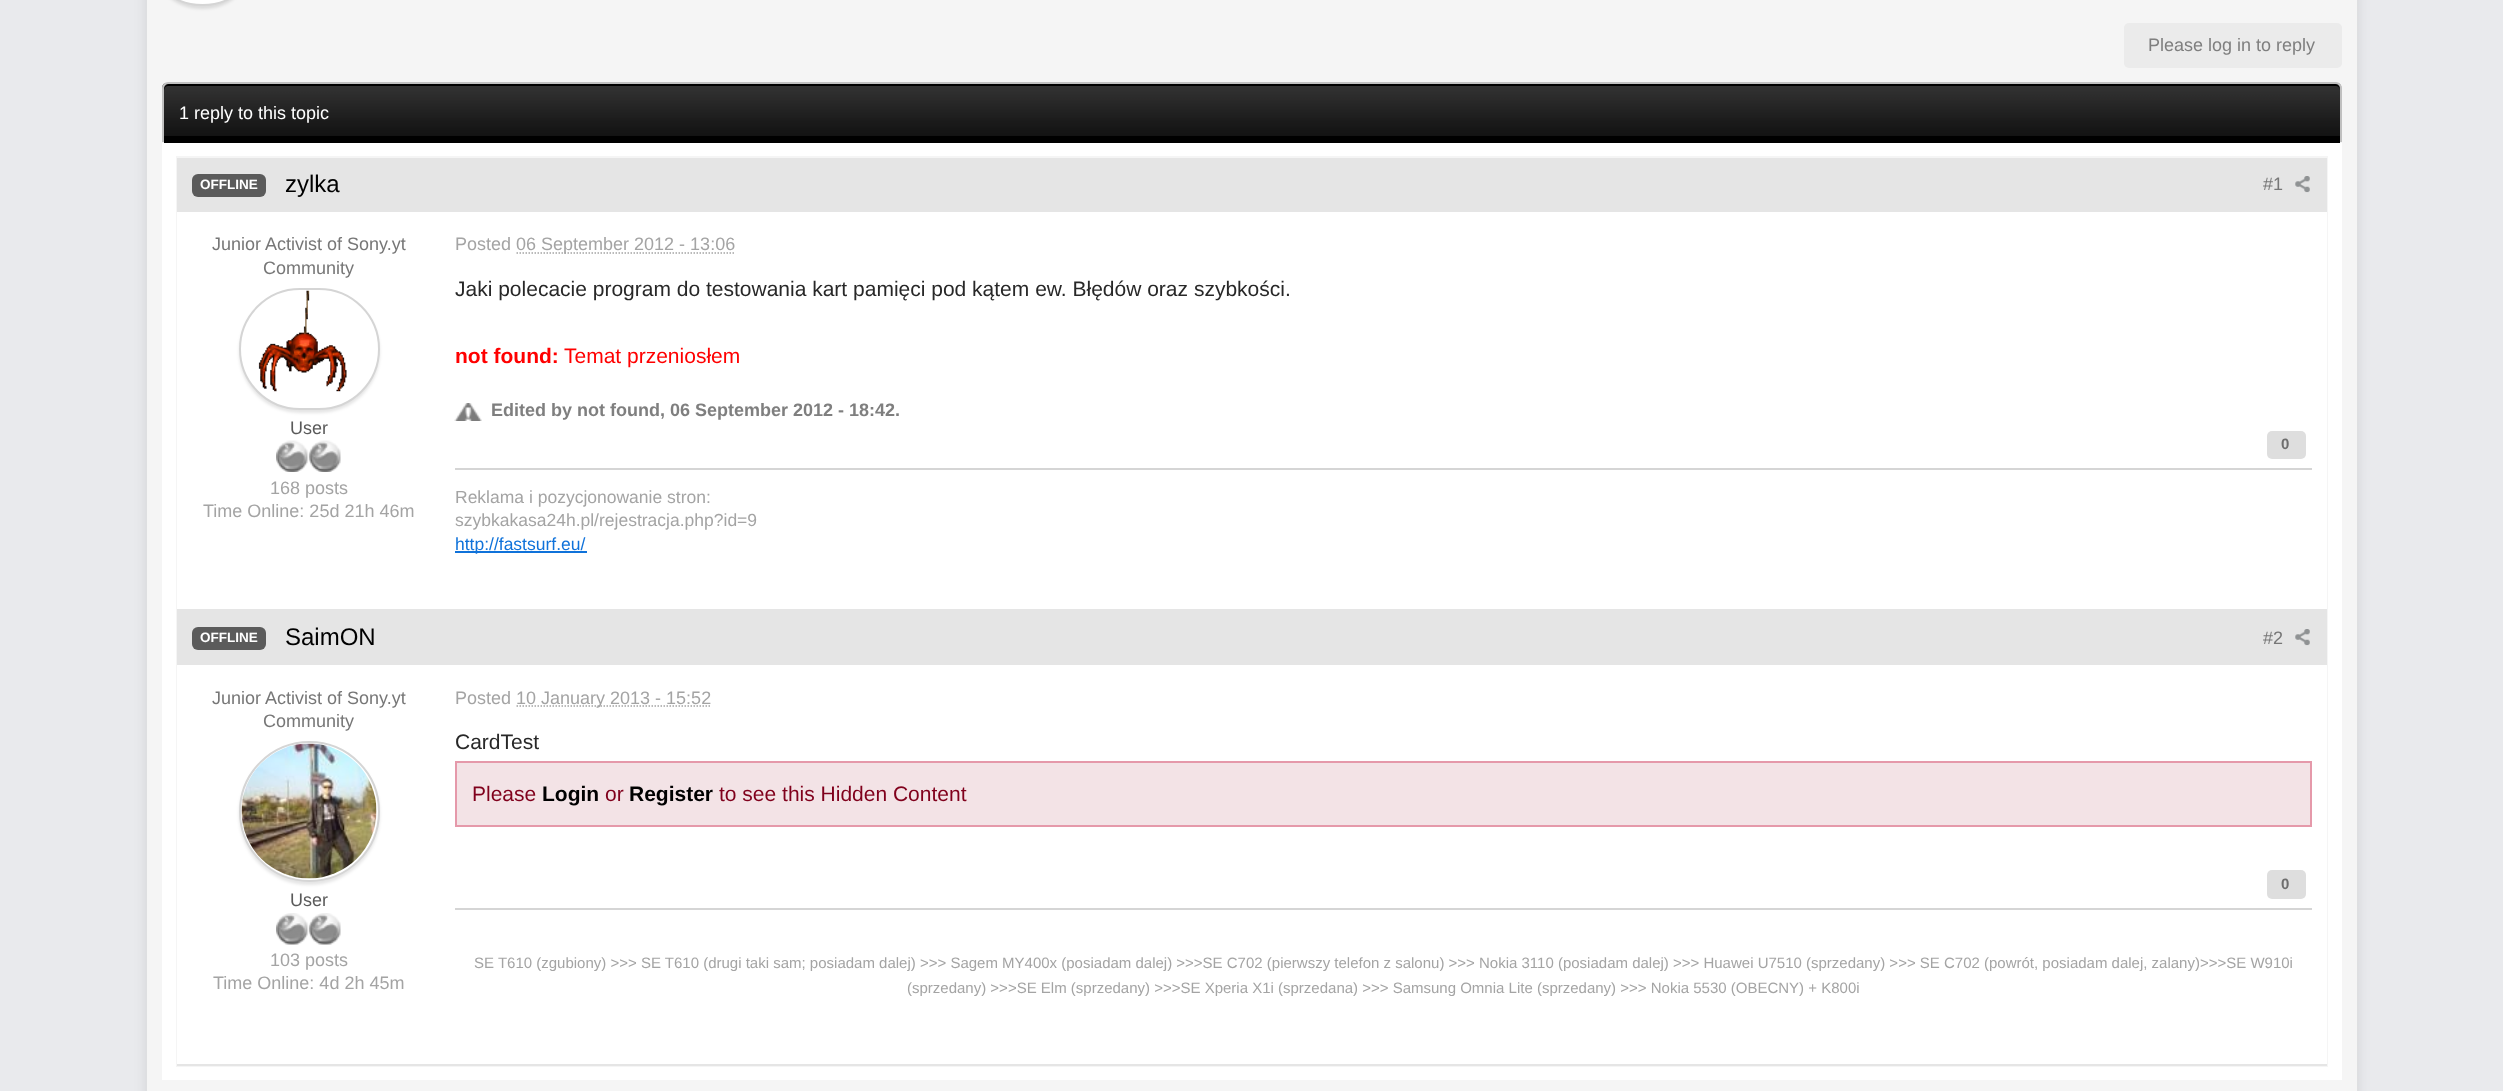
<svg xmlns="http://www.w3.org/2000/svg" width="2503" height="1091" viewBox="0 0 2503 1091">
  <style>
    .t1 { font: 18px Liberation Sans; fill: #7f7f7f; }
    .t2 { font: 18px Liberation Sans; fill: #fff; }
    .t3 { font: bold 13.5px Liberation Sans; fill: #fff; }
    .t4 { font: 24px Liberation Sans; fill: #000; }
    .t5 { font: 18px Liberation Sans; fill: #777; }
    .t6 { font: 18px Liberation Sans; fill: #5a5a5a; }
    .t7 { font: 18px Liberation Sans; fill: #a4a4a4; }
    .t8 { font: 21px Liberation Sans; fill: #282828; }
    .t9 { font: bold 21px Liberation Sans; fill: #f00; }
    .t10 { font: 21px Liberation Sans; fill: #f00; }
    .t11 { font: bold 18px Liberation Sans; fill: #7f7f7f; }
    .t12 { font: bold 15px Liberation Sans; fill: #6e6e6e; }
    .t13 { font: 17.5px Liberation Sans; fill: #a4a4a4; }
    .t14 { font: 17.5px Liberation Sans; fill: #0f72da; }
    .t15 { font: 21px Liberation Sans; fill: #80001c; }
    .t16 { font: bold 21px Liberation Sans; fill: #000; }
    .t17 { font: 15px Liberation Sans; fill: #a4a4a4; }
  </style>
  <rect width="100%" height="100%" fill="#e9eaed"/>
  <rect x="147" y="-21" width="2210" height="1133" fill="#0000001a" filter="blur(7px)"/>
  <rect x="147" y="0" width="2210" height="1091" fill="#f5f5f5"/>
  <rect x="162" y="-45" width="81" height="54" rx="40.5" fill="#0000001a" filter="blur(1.5px)"/>
  <rect x="163" y="-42" width="79" height="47" rx="39.5" fill="#fff" stroke="#d5d5d5" stroke-width="2"/>
  <rect x="2124" y="23" width="218" height="45" rx="5" fill="#ebebeb"/>
  <text x="2148" y="51" class="t1">Please log in to reply</text>
  <rect x="164" y="136" width="2176" height="7" fill="#000"/>
  <image x="162" y="83" width="2180" height="53" href="images/1.png"/>
  <path d="M168 86H2336C2338 86 2340 88 2340 90C2340 87 2338 84 2335 84H169C167 84 165 86 164 88V90C164 88 166 86 168 86Z" fill="#000"/>
  <path d="M168 82H2336C2339 82 2342 85 2342 88V142H162V88C162 85 165 82 168 82ZM168 84H2336C2338 84 2340 86 2340 88V142H164V88C164 86 166 84 168 84Z" fill="#c0c0c0" fill-rule="evenodd"/>
  <text x="179" y="119" class="t2">1 reply to this topic</text>
  <rect x="162" y="143" width="2180" height="937" fill="#fff"/>
  <rect x="177" y="157" width="2150" height="909" fill="none" stroke="#f5f5f5" stroke-width="2"/>
  <rect x="177" y="212" width="2150" height="397" fill="#fff"/>
  <rect x="177" y="609" width="2150" height="56" fill="#e5e5e5"/>
  <rect x="177" y="158" width="2150" height="54" fill="#e5e5e5"/>
  <rect x="192" y="174" width="74" height="23" rx="6" fill="#5b5b5b"/>
  <text x="200" y="189" class="t3">OFFLINE</text>
  <text x="285" y="192" class="t4">zylka</text>
  <text x="2263" y="190" class="t5">#1</text>
  <image x="2295" y="176" width="15" height="17" href="images/2.png"/>
  <text x="212" y="250" class="t5">Junior Activist of Sony.yt</text>
  <text x="263" y="274" class="t5">Community</text>
  <rect x="239" y="291" width="141" height="122" rx="61" fill="#0000001a" filter="blur(1.5px)"/>
  <rect x="240" y="289" width="139" height="120" rx="60" fill="#fff" stroke="#d5d5d5" stroke-width="2"/>
  <image x="258" y="290" width="89" height="102" href="images/3.png"/>
  <text x="290" y="434" class="t6">User</text>
  <image x="276" y="440" width="65" height="32" href="images/4.png"/>
  <text x="270" y="494" class="t7">168 posts</text>
  <text x="203" y="517" class="t7">Time Online: 25d 21h 46m</text>
  <text x="455" y="250" class="t7">Posted</text>
  <path d="M516.5 253H735.5" fill="none" stroke="#a4a4a4" stroke-width="1.5" stroke-dasharray="1.5 1.5"/>
  <text x="516" y="250" class="t7">06 September 2012 - 13:06</text>
  <text x="455" y="296" class="t8">Jaki polecacie program do testowania kart pamięci pod kątem ew. Błędów oraz szybkości.</text>
  <text x="455" y="363" class="t9">not found:</text>
  <text x="564" y="363" class="t10">Temat przeniosłem</text>
  <image x="454" y="403" width="28" height="18" href="images/5.png"/>
  <text x="491" y="416" class="t11">Edited by not found, 06 September 2012 - 18:42.</text>
  <rect x="2267" y="431" width="39" height="28" rx="5" fill="#dedede"/>
  <text x="2281" y="449" class="t12">0</text>
  <rect x="455" y="468" width="1857" height="2" fill="#d5d5d5"/>
  <text x="455" y="503" class="t13">Reklama i pozycjonowanie stron:</text>
  <text x="455" y="526" class="t13">szybkakasa24h.pl/rejestracja.php?id=9</text>
  <rect x="455" y="551" width="132" height="2" fill="#0f72da"/>
  <text x="455" y="550" class="t14">http://fastsurf.eu/</text>
  <rect x="177" y="665" width="2150" height="399" fill="#fff"/>
  <rect x="177" y="1064" width="2150" height="2" fill="#e5e5e5"/>
  <rect x="192" y="627" width="74" height="23" rx="6" fill="#5b5b5b"/>
  <text x="200" y="642" class="t3">OFFLINE</text>
  <text x="285" y="645" class="t4">SaimON</text>
  <text x="2263" y="644" class="t5">#2</text>
  <image x="2295" y="629" width="15" height="17" href="images/2.png"/>
  <text x="212" y="704" class="t5">Junior Activist of Sony.yt</text>
  <text x="263" y="727" class="t5">Community</text>
  <rect x="239" y="744" width="141" height="141" rx="70.5" fill="#0000001a" filter="blur(1.5px)"/>
  <circle cx="309.5" cy="811.5" r="69.5" fill="#fff" stroke="#d5d5d5" stroke-width="2"/>
  <image x="241" y="743" width="136" height="136" href="images/6.png"/>
  <text x="290" y="906" class="t6">User</text>
  <image x="276" y="913" width="65" height="32" href="images/7.png"/>
  <text x="270" y="966" class="t7">103 posts</text>
  <text x="213" y="989" class="t7">Time Online: 4d 2h 45m</text>
  <text x="455" y="704" class="t7">Posted</text>
  <path d="M516.5 706H711.5" fill="none" stroke="#a4a4a4" stroke-width="1.5" stroke-dasharray="1.5 1.5"/>
  <text x="516" y="704" class="t7">10 January 2013 - 15:52</text>
  <text x="455" y="749" class="t8">CardTest</text>
  <rect x="456" y="762" width="1855" height="64" fill="#f3e3e6" stroke="#e599aa" stroke-width="2"/>
  <text x="472" y="801" class="t15">Please</text>
  <text x="542" y="801" class="t16">Login</text>
  <text x="605" y="801" class="t15">or</text>
  <text x="629" y="801" class="t16">Register</text>
  <text x="719" y="801" class="t15">to see this Hidden Content</text>
  <rect x="2267" y="870" width="39" height="29" rx="5" fill="#dedede"/>
  <text x="2281" y="889" class="t12">0</text>
  <rect x="455" y="908" width="1857" height="2" fill="#d5d5d5"/>
  <text x="474" y="968" class="t17">SE T610 (zgubiony) &gt;&gt;&gt; SE T610 (drugi taki sam; posiadam dalej) &gt;&gt;&gt; Sagem MY400x (posiadam dalej) &gt;&gt;&gt;SE C702 (pierwszy telefon z salonu) &gt;&gt;&gt; Nokia 3110 (posiadam dalej) &gt;&gt;&gt; Huawei U7510 (sprzedany) &gt;&gt;&gt; SE C702 (powrót, posiadam dalej, zalany)&gt;&gt;&gt;SE W910i</text>
  <text x="907" y="993" class="t17">(sprzedany) &gt;&gt;&gt;SE Elm (sprzedany) &gt;&gt;&gt;SE Xperia X1i (sprzedana) &gt;&gt;&gt; Samsung Omnia Lite (sprzedany) &gt;&gt;&gt; Nokia 5530 (OBECNY) + K800i</text>
</svg>
